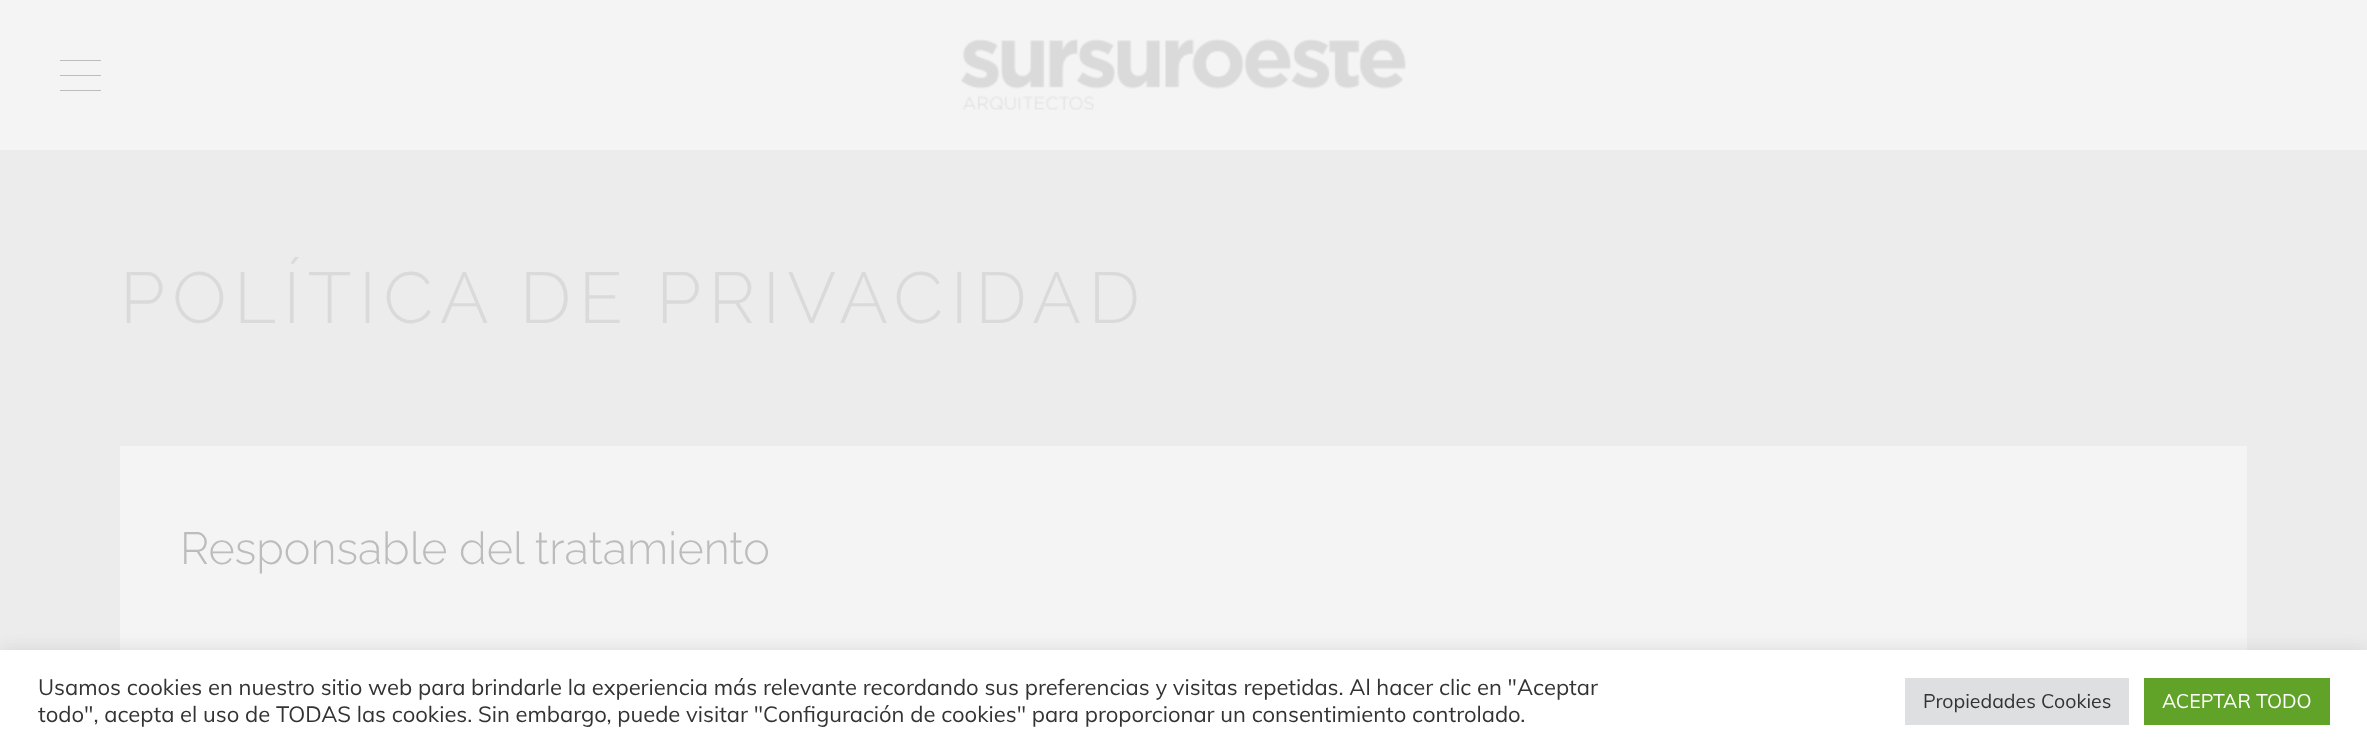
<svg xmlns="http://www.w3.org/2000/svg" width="2367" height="752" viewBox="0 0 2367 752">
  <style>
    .t1 { font: 300 72px Raleway; letter-spacing: 7.5px; fill: #dadada; }
    .t2 { font: 300 45px Raleway; fill: #bcbcbc; }
    .t3 { font: 22px Muli; fill: #333; }
    .t4 { font: 19.5px Muli; fill: #333; }
    .t5 { font: 19.5px Muli; fill: #fff; }
  </style>
  <rect width="100%" height="100%" fill="#ececec"/>
  <rect x="0" y="0" width="2367" height="150" fill="#f4f4f4"/>
  <rect x="60" y="90" width="41" height="1" fill="#bcbcbc"/>
  <rect x="60" y="60" width="41" height="1" fill="#bcbcbc"/>
  <rect x="60" y="75" width="41" height="1" fill="#bcbcbc"/>
  <image x="961" y="38" width="445" height="72" href="images/1.png"/>
  <text x="120" y="323" class="t1">POLÍTICA DE PRIVACIDAD</text>
  <rect x="120" y="446" width="2127" height="204" fill="#f4f4f4"/>
  <text x="180" y="564" class="t2">Responsable del tratamiento</text>
  <rect x="0" y="648" width="2367" height="104" fill="#acabab4d" filter="blur(7.5px)"/>
  <rect x="0" y="650" width="2367" height="102" fill="#fff"/>
  <text x="38" y="695" class="t3">Usamos cookies en nuestro sitio web para brindarle la experiencia más relevante recordando sus preferencias y visitas repetidas. Al hacer clic en "Aceptar</text>
  <text x="38" y="722" class="t3">todo", acepta el uso de TODAS las cookies. Sin embargo, puede visitar "Configuración de cookies" para proporcionar un consentimiento controlado.</text>
  <rect x="1905" y="678" width="224" height="47" fill="#dedfe0"/>
  <text x="1923" y="708" class="t4">Propiedades Cookies</text>
  <rect x="2144" y="678" width="186" height="47" fill="#61a229"/>
  <text x="2162" y="708" class="t5">ACEPTAR TODO</text>
</svg>
